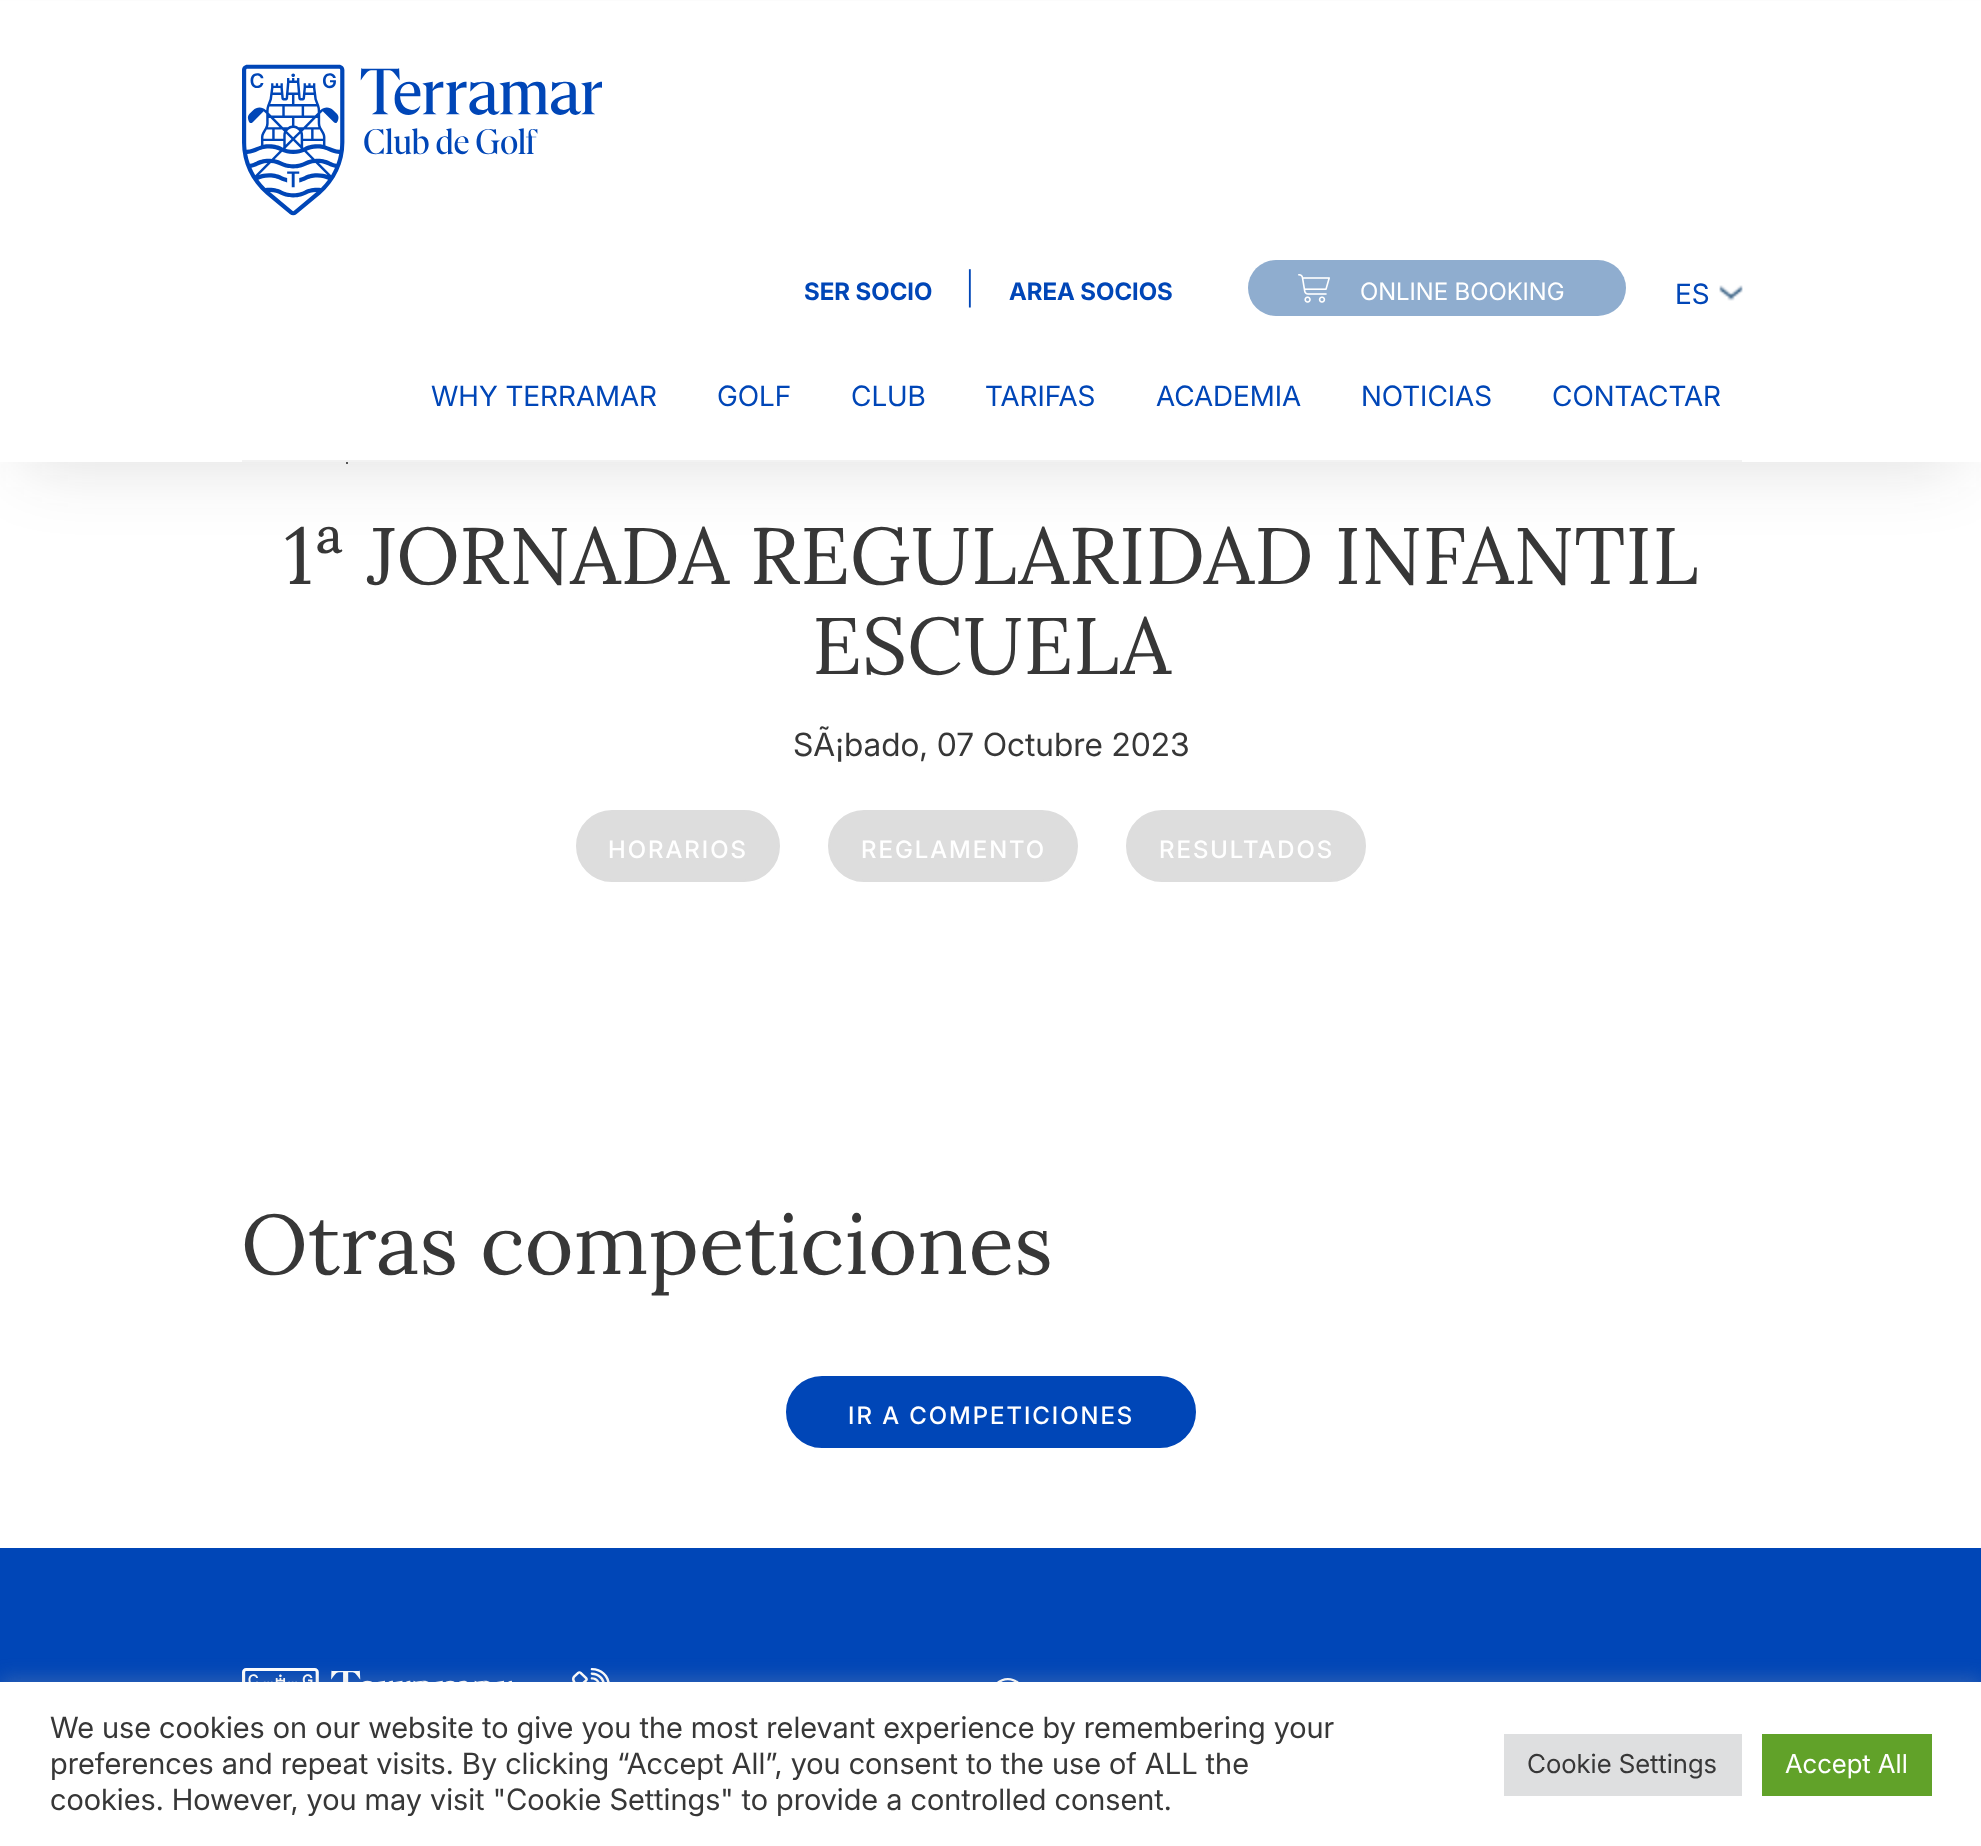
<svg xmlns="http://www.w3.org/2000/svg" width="1981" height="1846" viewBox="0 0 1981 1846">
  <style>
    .t1 { font: bold 24px Inter; fill: #0046b7; }
    .t2 { font: 300 32px Inter; fill: #0046b7; }
    .t3 { font: 24px Inter; fill: #fff; }
    .t4 { font: 28px Inter; fill: #0046b7; }
    .t5 { font: 80px Lora; fill: #373737; }
    .t6 { font: 32px Inter; fill: #373737; }
    .t7 { font: 500 24px Inter; letter-spacing: 2px; fill: #fff; }
    .t8 { font: 84px Lora; fill: #373737; }
    .t9 { font: 29.35px Inter; fill: #373737; }
    .t10 { font: 26px Inter; fill: #373737; }
    .t11 { font: 26px Inter; fill: #fff; }
  </style>
  <rect width="100%" height="100%" fill="#fff"/>
  <rect x="346" y="462" width="2" height="2" fill="#5a5a5a"/>
  <rect x="24" y="50" width="1934" height="414" fill="#23232326" filter="blur(35px)"/>
  <rect x="0" y="1" width="1981" height="461" fill="#fff"/>
  <rect x="242" y="460" width="1500" height="2" fill="#f2f2f2"/>
  <image x="242" y="64" width="360" height="152" href="images/1.png"/>
  <text x="804" y="300" class="t1">SER SOCIO</text>
  <text x="965" y="300" class="t2">|</text>
  <text x="1009" y="300" class="t1">AREA SOCIOS</text>
  <rect x="1248" y="260" width="378" height="56" rx="28" fill="#8fadcf"/>
  <image x="1298" y="274" width="32" height="29" href="images/2.png"/>
  <text x="1360" y="300" class="t3">ONLINE BOOKING</text>
  <text x="1675" y="304" class="t4">ES</text>
  <image x="1719" y="285" width="24" height="16" href="images/3.png"/>
  <text x="431" y="406" class="t4">WHY TERRAMAR</text>
  <text x="717" y="406" class="t4">GOLF</text>
  <text x="851" y="406" class="t4">CLUB</text>
  <text x="985" y="406" class="t4">TARIFAS</text>
  <text x="1156" y="406" class="t4">ACADEMIA</text>
  <text x="1361" y="406" class="t4">NOTICIAS</text>
  <text x="1552" y="406" class="t4">CONTACTAR</text>
  <text x="284" y="584" class="t5">1ª JORNADA REGULARIDAD INFANTIL</text>
  <text x="812" y="674" class="t5">ESCUELA</text>
  <text x="793" y="756" class="t6">SÃ¡bado, 07 Octubre 2023</text>
  <rect x="577" y="811" width="202" height="70" rx="35" fill="#ddd" stroke="#ddd" stroke-width="2"/>
  <text x="608" y="858" class="t7">HORARIOS</text>
  <rect x="829" y="811" width="248" height="70" rx="35" fill="#ddd" stroke="#ddd" stroke-width="2"/>
  <text x="861" y="858" class="t7">REGLAMENTO</text>
  <rect x="1127" y="811" width="238" height="70" rx="35" fill="#ddd" stroke="#ddd" stroke-width="2"/>
  <text x="1159" y="858" class="t7">RESULTADOS</text>
  <text x="241" y="1274" class="t8">Otras competiciones</text>
  <rect x="787" y="1377" width="408" height="70" rx="35" fill="#0046b7" stroke="#0046b7" stroke-width="2"/>
  <text x="848" y="1424" class="t7">IR A COMPETICIONES</text>
  <rect x="0" y="1548" width="1981" height="134" fill="#0046b7"/>
  <image x="242" y="1668" width="270" height="14" href="images/4.png"/>
  <image x="572" y="1668" width="38" height="14" href="images/5.png"/>
  <image x="997" y="1678" width="22" height="4" href="images/6.png"/>
  <rect x="0" y="1680" width="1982" height="164" fill="#acabab4d" filter="blur(10px)"/>
  <rect x="0" y="1682" width="1981" height="164" fill="#fff"/>
  <text x="50" y="1738" class="t9">We use cookies on our website to give you the most relevant experience by remembering your</text>
  <text x="50" y="1774" class="t9">preferences and repeat visits. By clicking “Accept All”, you consent to the use of ALL the</text>
  <text x="50" y="1810" class="t9">cookies. However, you may visit "Cookie Settings" to provide a controlled consent.</text>
  <rect x="1504" y="1734" width="238" height="62" fill="#dedfe0"/>
  <text x="1527" y="1773" class="t10">Cookie Settings</text>
  <rect x="1762" y="1734" width="170" height="62" fill="#61a229"/>
  <text x="1785" y="1773" class="t11">Accept All</text>
</svg>
